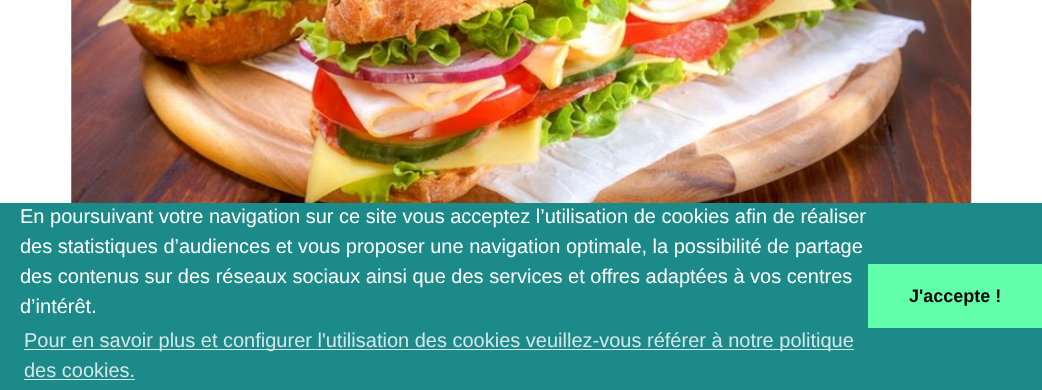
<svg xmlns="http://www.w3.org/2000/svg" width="1042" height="390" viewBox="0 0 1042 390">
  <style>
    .t1 { font: 20px Liberation Sans; fill: #fff; }
    .t2 { font: 20px Liberation Sans; fill: #d2e8e8; }
    .t3 { font: bold 18px Liberation Sans; fill: #000; }
  </style>
  <rect width="100%" height="100%" fill="#fff"/>
  <image x="71" y="0" width="901" height="203" href="images/1.png"/>
  <rect x="0" y="203" width="1042" height="187" fill="#1d8a8a"/>
  <text x="20" y="223" class="t1">En poursuivant votre navigation sur ce site vous acceptez l’utilisation de cookies afin de réaliser</text>
  <text x="20" y="253" class="t1">des statistiques d’audiences et vous proposer une navigation optimale, la possibilité de partage</text>
  <text x="20" y="283" class="t1">des contenus sur des réseaux sociaux ainsi que des services et offres adaptées à vos centres</text>
  <text x="20" y="313" class="t1">d’intérêt.</text>
  <rect x="24" y="349" width="830" height="1" fill="#d2e8e8"/>
  <text x="24" y="347" class="t2">Pour en savoir plus et configurer l'utilisation des cookies veuillez-vous référer à notre politique</text>
  <text x="24" y="377" class="t2">des cookies.</text>
  <rect x="24" y="379" width="111" height="1" fill="#d2e8e8"/>
  <rect x="868" y="264" width="174" height="64" fill="#62ffaa"/>
  <text x="909" y="302" class="t3">J'accepte !</text>
</svg>
